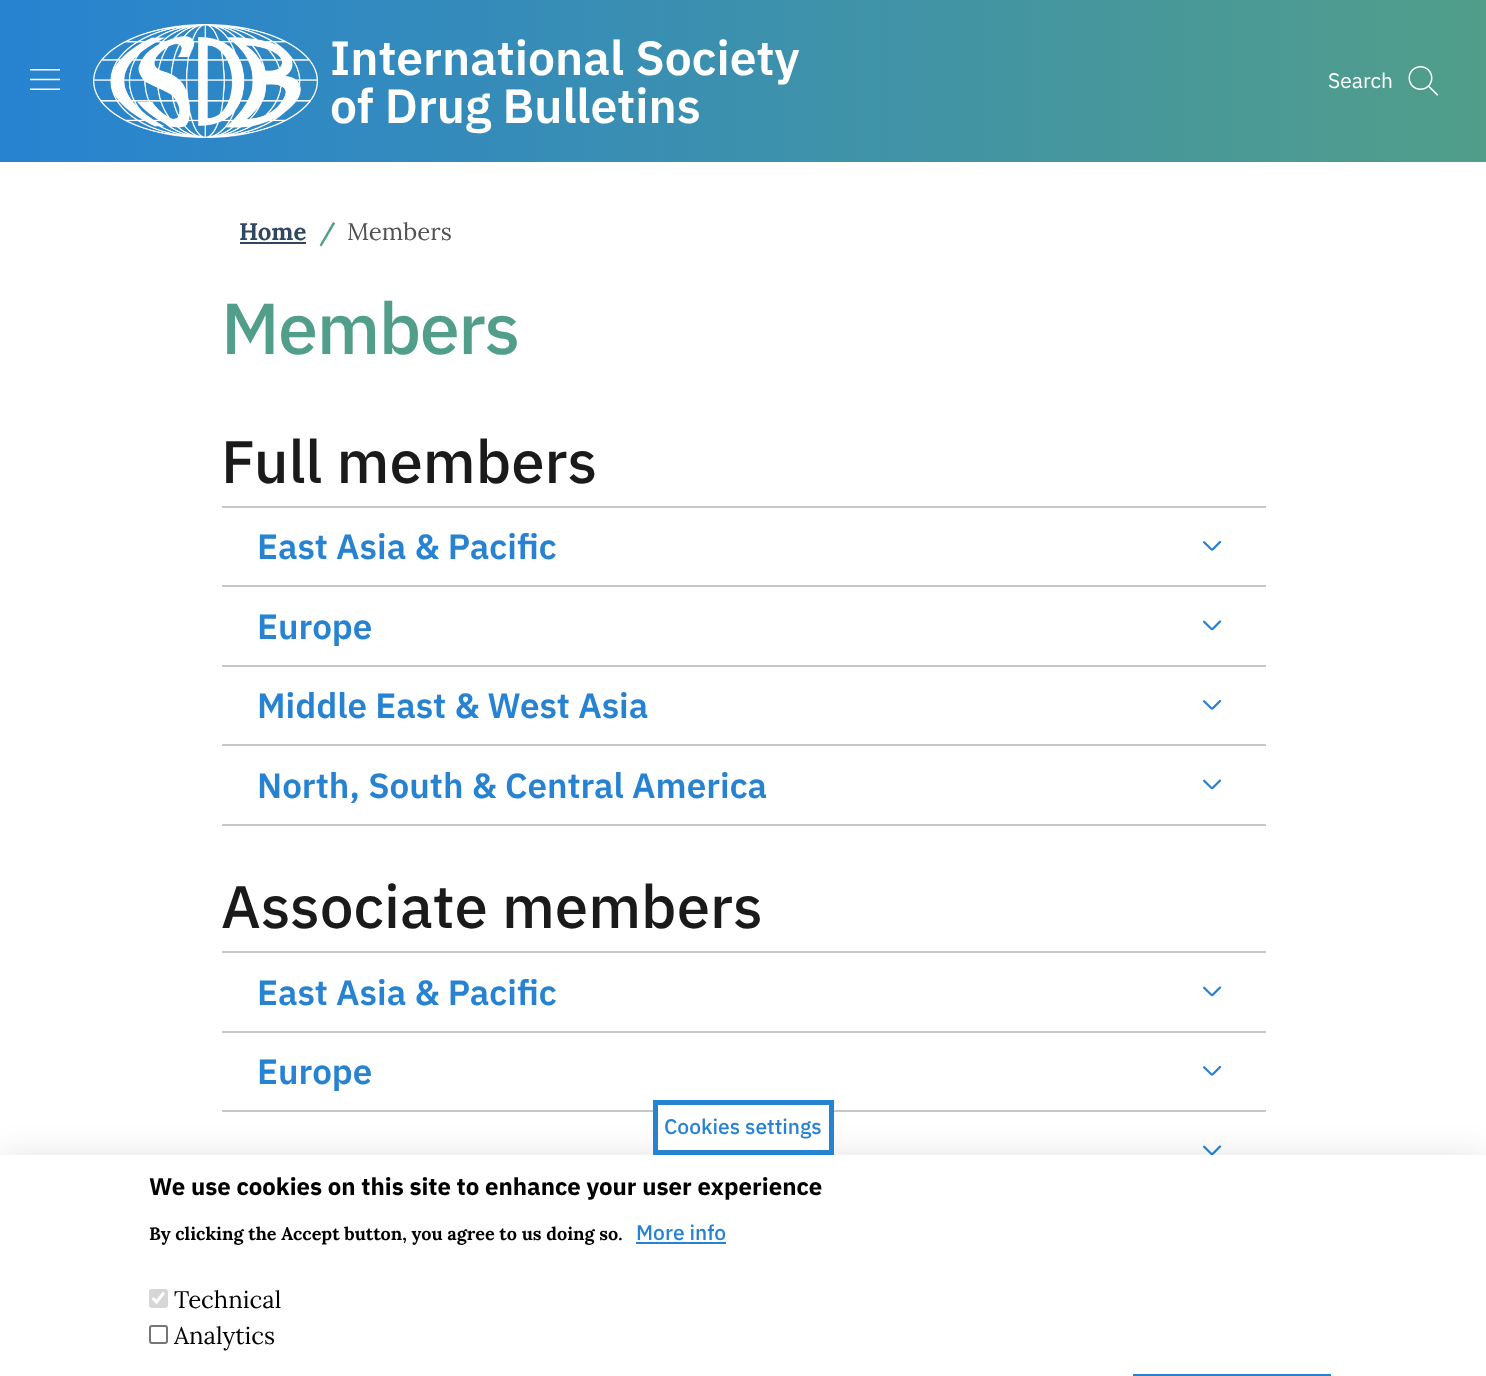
<svg xmlns="http://www.w3.org/2000/svg" width="1486" height="1376" viewBox="0 0 1486 1376">
  <style>
    .t1 { font: 600 48px IBM Plex Sans; fill: #fff; }
    .t2 { font: 21px IBM Plex Sans; fill: #fff; }
    .t3 { font: bold 24px Lora; fill: #30475f; }
    .t4 { font: bold 24px Lora; fill: #519e8a; }
    .t5 { font: 24px Lora; fill: #525252; }
    .t6 { font: 500 72px IBM Plex Sans; letter-spacing: -1.5px; fill: #519e8a; }
    .t7 { font: 500 60px IBM Plex Sans; fill: #1a1a1a; }
    .t8 { font: 600 35px IBM Plex Sans; fill: #2783d1; }
    .t9 { font: 500 21px IBM Plex Sans; fill: #2783d1; }
    .t10 { font: bold 24px IBM Plex Sans; fill: #000; }
    .t11 { font: bold 18px Lora; fill: #000; }
    .t12 { font: 24px Lora; fill: #000; }
  </style>
  <defs>
    <linearGradient id="g1" gradientUnits="userSpaceOnUse" x1="0" y1="81" x2="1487" y2="81"><stop offset="0" stop-color="#2783d1"/><stop offset="1" stop-color="#519e8a"/></linearGradient>
  </defs>
  <rect width="100%" height="100%" fill="#fff"/>
  <rect x="0" y="0" width="1486" height="162" fill="url(#g1)"/>
  <image x="30" y="69" width="30" height="21" href="images/1.png"/>
  <image x="93" y="24" width="225" height="114" href="images/2.png"/>
  <text x="330" y="75" class="t1">International Society</text>
  <text x="330" y="123" class="t1">of Drug Bulletins</text>
  <text x="1328" y="88" class="t2">Search</text>
  <image x="1408" y="66" width="31" height="30" href="images/3.png"/>
  <text x="239" y="240" class="t3">Home</text>
  <rect x="240" y="242" width="66" height="2" fill="#30475f"/>
  <text x="319" y="240" class="t4">/</text>
  <text x="347" y="240" class="t5">Members</text>
  <text x="221" y="354" class="t6">Members</text>
  <text x="221" y="483" class="t7">Full members</text>
  <rect x="222" y="506" width="1044" height="2" fill="#c5c7c9"/>
  <text x="257" y="559" class="t8">East Asia &amp; Pacific</text>
  <image x="1203" y="541" width="19" height="10" href="images/4.png"/>
  <rect x="222" y="585" width="1044" height="2" fill="#c5c7c9"/>
  <text x="257" y="639" class="t8">Europe</text>
  <image x="1203" y="620" width="19" height="11" href="images/5.png"/>
  <rect x="222" y="665" width="1044" height="2" fill="#c5c7c9"/>
  <text x="257" y="718" class="t8">Middle East &amp; West Asia</text>
  <image x="1203" y="700" width="19" height="10" href="images/4.png"/>
  <rect x="222" y="824" width="1044" height="2" fill="#c5c7c9"/>
  <rect x="222" y="744" width="1044" height="2" fill="#c5c7c9"/>
  <text x="257" y="798" class="t8">North, South &amp; Central America</text>
  <image x="1203" y="779" width="19" height="11" href="images/5.png"/>
  <text x="221" y="928" class="t7">Associate members</text>
  <rect x="222" y="951" width="1044" height="2" fill="#c5c7c9"/>
  <text x="257" y="1005" class="t8">East Asia &amp; Pacific</text>
  <image x="1203" y="986" width="19" height="11" href="images/5.png"/>
  <rect x="222" y="1031" width="1044" height="2" fill="#c5c7c9"/>
  <text x="257" y="1084" class="t8">Europe</text>
  <image x="1203" y="1066" width="19" height="10" href="images/4.png"/>
  <rect x="222" y="1110" width="1044" height="2" fill="#c5c7c9"/>
  <image x="1203" y="1145" width="19" height="10" href="images/6.png"/>
  <rect x="0" y="1161" width="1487" height="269" fill="#00000026" filter="blur(18px)"/>
  <rect x="0" y="1155" width="1486" height="221" fill="#fff"/>
  <rect x="658" y="1110" width="171" height="40" fill="#fff"/>
  <rect x="655.5" y="1102.5" width="176" height="50" fill="none" stroke="#2783d1" stroke-width="5"/>
  <text x="664" y="1134" class="t9">Cookies settings</text>
  <text x="149" y="1195" class="t10">We use cookies on this site to enhance your user experience</text>
  <text x="149" y="1240" class="t11">By clicking the Accept button, you agree to us doing so.</text>
  <text x="636" y="1240" class="t9">More info</text>
  <rect x="636" y="1242" width="90" height="2" fill="#2783d1"/>
  <rect x="149" y="1289" width="19" height="19" rx="3" fill="#d6d6d6"/>
  <path d="M152.5 1298L156.5 1302L164 1292.5" fill="none" stroke="#fff" stroke-width="3.1"/>
  <text x="174" y="1308" class="t12">Technical</text>
  <rect x="150" y="1326" width="17" height="17" rx="2" fill="none" stroke="#767676" stroke-width="2"/>
  <text x="174" y="1344" class="t12">Analytics</text>
  <rect x="1135.5" y="1376.5" width="193" height="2" fill="none" stroke="#2783d1" stroke-width="5"/>
</svg>
